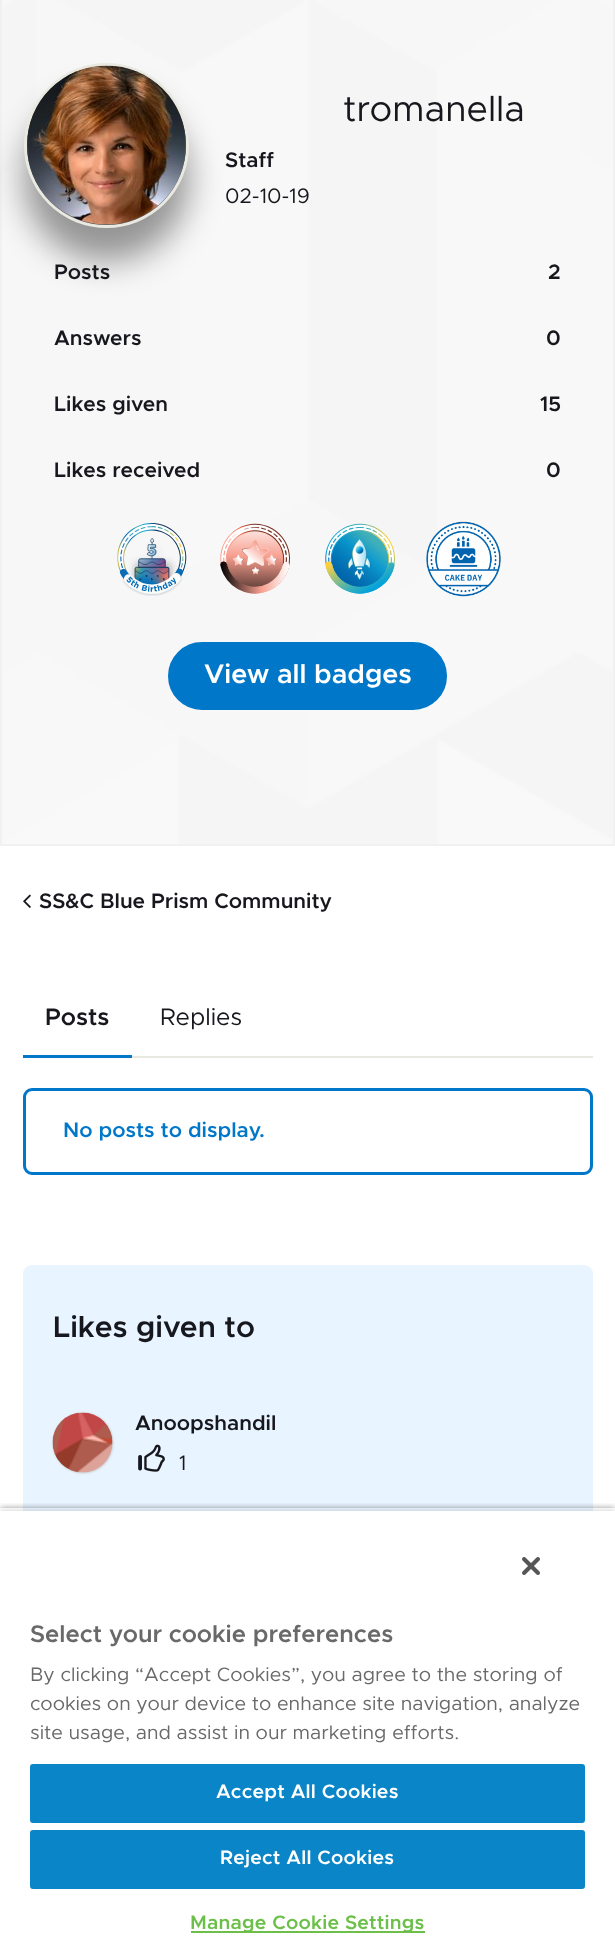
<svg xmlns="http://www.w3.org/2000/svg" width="615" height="1959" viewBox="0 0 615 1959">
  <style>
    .t1 { font: 36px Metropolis; fill: #17171e; }
    .t2 { font: 600 21px Metropolis; fill: #17171e; }
    .t3 { font: 21px Metropolis; fill: #17171e; }
    .t4 { font: 600 27px Metropolis; fill: #fff; }
    .t5 { font: 600 24px Metropolis; fill: #17171e; }
    .t6 { font: 24px Metropolis; fill: #17171e; }
    .t7 { font: 600 21px Metropolis; fill: #0077c8; }
    .t8 { font: 600 30px Metropolis; fill: #17171e; }
    .t9 { font: 600 24px Metropolis; fill: #696969; }
    .t10 { font: 19.5px Metropolis; fill: #696969; }
    .t11 { font: 600 19.5px Metropolis; letter-spacing: 0.2px; fill: #fff; }
    .t12 { font: 600 19.5px Metropolis; letter-spacing: 0.2px; fill: #6cc04a; }
  </style>
  <defs>
    <clipPath id="clip1"><rect x="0" y="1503" width="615" height="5"/></clipPath>
  </defs>
  <rect width="100%" height="100%" fill="#fff"/>
  <image x="2" y="0" width="611" height="844" href="images/1.png"/>
  <rect x="1" y="-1" width="613" height="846" fill="none" stroke="#f1f1f1" stroke-width="2"/>
  <rect x="24" y="96" width="165" height="165" rx="82.5" fill="#00000066" filter="blur(16.5px)"/>
  <circle cx="106.5" cy="145.5" r="81" fill="#5d5d5d" stroke="#e9e9e2" stroke-width="3"/>
  <image x="27" y="65" width="159" height="160" href="images/2.png"/>
  <text x="343" y="121" class="t1">tromanella</text>
  <text x="225" y="167" class="t2">Staff</text>
  <text x="225" y="203" class="t3">02-10-19</text>
  <text x="54" y="279" class="t2">Posts</text>
  <text x="548" y="279" class="t2">2</text>
  <text x="54" y="345" class="t2">Answers</text>
  <text x="546" y="345" class="t2">0</text>
  <text x="54" y="411" class="t2">Likes given</text>
  <text x="540" y="411" class="t2">15</text>
  <text x="54" y="477" class="t2">Likes received</text>
  <text x="546" y="477" class="t2">0</text>
  <image x="117" y="523" width="70" height="73" href="images/3.png"/>
  <image x="220" y="523" width="70" height="71" href="images/4.png"/>
  <image x="325" y="523" width="70" height="71" href="images/5.png"/>
  <image x="426" y="521" width="75" height="76" href="images/6.png"/>
  <rect x="169.5" y="643.5" width="276" height="65" rx="32.5" fill="#0077c8" stroke="#0077c8" stroke-width="3"/>
  <text x="204" y="683" class="t4">View all badges</text>
  <image x="23" y="894" width="8" height="14" href="images/7.png"/>
  <text x="39" y="908" class="t2">SS&amp;C Blue Prism Community</text>
  <rect x="132" y="1056" width="461" height="2" fill="#e9e9e2"/>
  <rect x="23" y="1055" width="109" height="3" fill="#0077c8"/>
  <text x="45" y="1025" class="t5">Posts</text>
  <text x="160" y="1025" class="t6">Replies</text>
  <rect x="24.5" y="1089.5" width="567" height="84" rx="7.5" fill="none" stroke="#0077c8" stroke-width="3"/>
  <text x="63" y="1137" class="t7">No posts to display.</text>
  <rect x="23" y="1265" width="570" height="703" rx="9" fill="#e8f4ff"/>
  <text x="53" y="1337" class="t8">Likes given to</text>
  <rect x="53" y="1413" width="60" height="60" rx="30" fill="#c4c4c4" filter="blur(1px)"/>
  <image x="52" y="1412" width="61" height="61" href="images/8.png"/>
  <text x="135" y="1430" class="t2">Anoopshandil</text>
  <image x="138" y="1444" width="27" height="28" href="images/9.png"/>
  <text x="179" y="1470" class="t3">1</text>
  <g clip-path="url(#clip1)">
    <rect x="0" y="1508" width="615" height="451" fill="#00000059" filter="blur(3px)"/>
  </g>
  <rect x="0" y="1511" width="615" height="448" fill="#00000033" filter="blur(3px)"/>
  <rect x="0" y="1511" width="615" height="448" fill="#fff"/>
  <image x="522" y="1557" width="18" height="18" href="images/10.png"/>
  <text x="30" y="1642" class="t9">Select your cookie preferences</text>
  <text x="30" y="1681" class="t10">By clicking “Accept Cookies”, you agree to the storing of</text>
  <text x="30" y="1710" class="t10">cookies on your device to enhance site navigation, analyze</text>
  <text x="30" y="1739" class="t10">site usage, and assist in our marketing efforts.</text>
  <rect x="31" y="1765" width="553" height="57" rx="2" fill="#0a85c7" stroke="#0a85c7" stroke-width="2"/>
  <text x="216" y="1798" class="t11">Accept All Cookies</text>
  <rect x="31" y="1831" width="553" height="57" rx="2" fill="#0a85c7" stroke="#0a85c7" stroke-width="2"/>
  <text x="220" y="1864" class="t11">Reject All Cookies</text>
  <rect x="191" y="1931" width="234" height="2" fill="#6cc04a"/>
  <text x="190" y="1929" class="t12">Manage Cookie Settings</text>
</svg>
